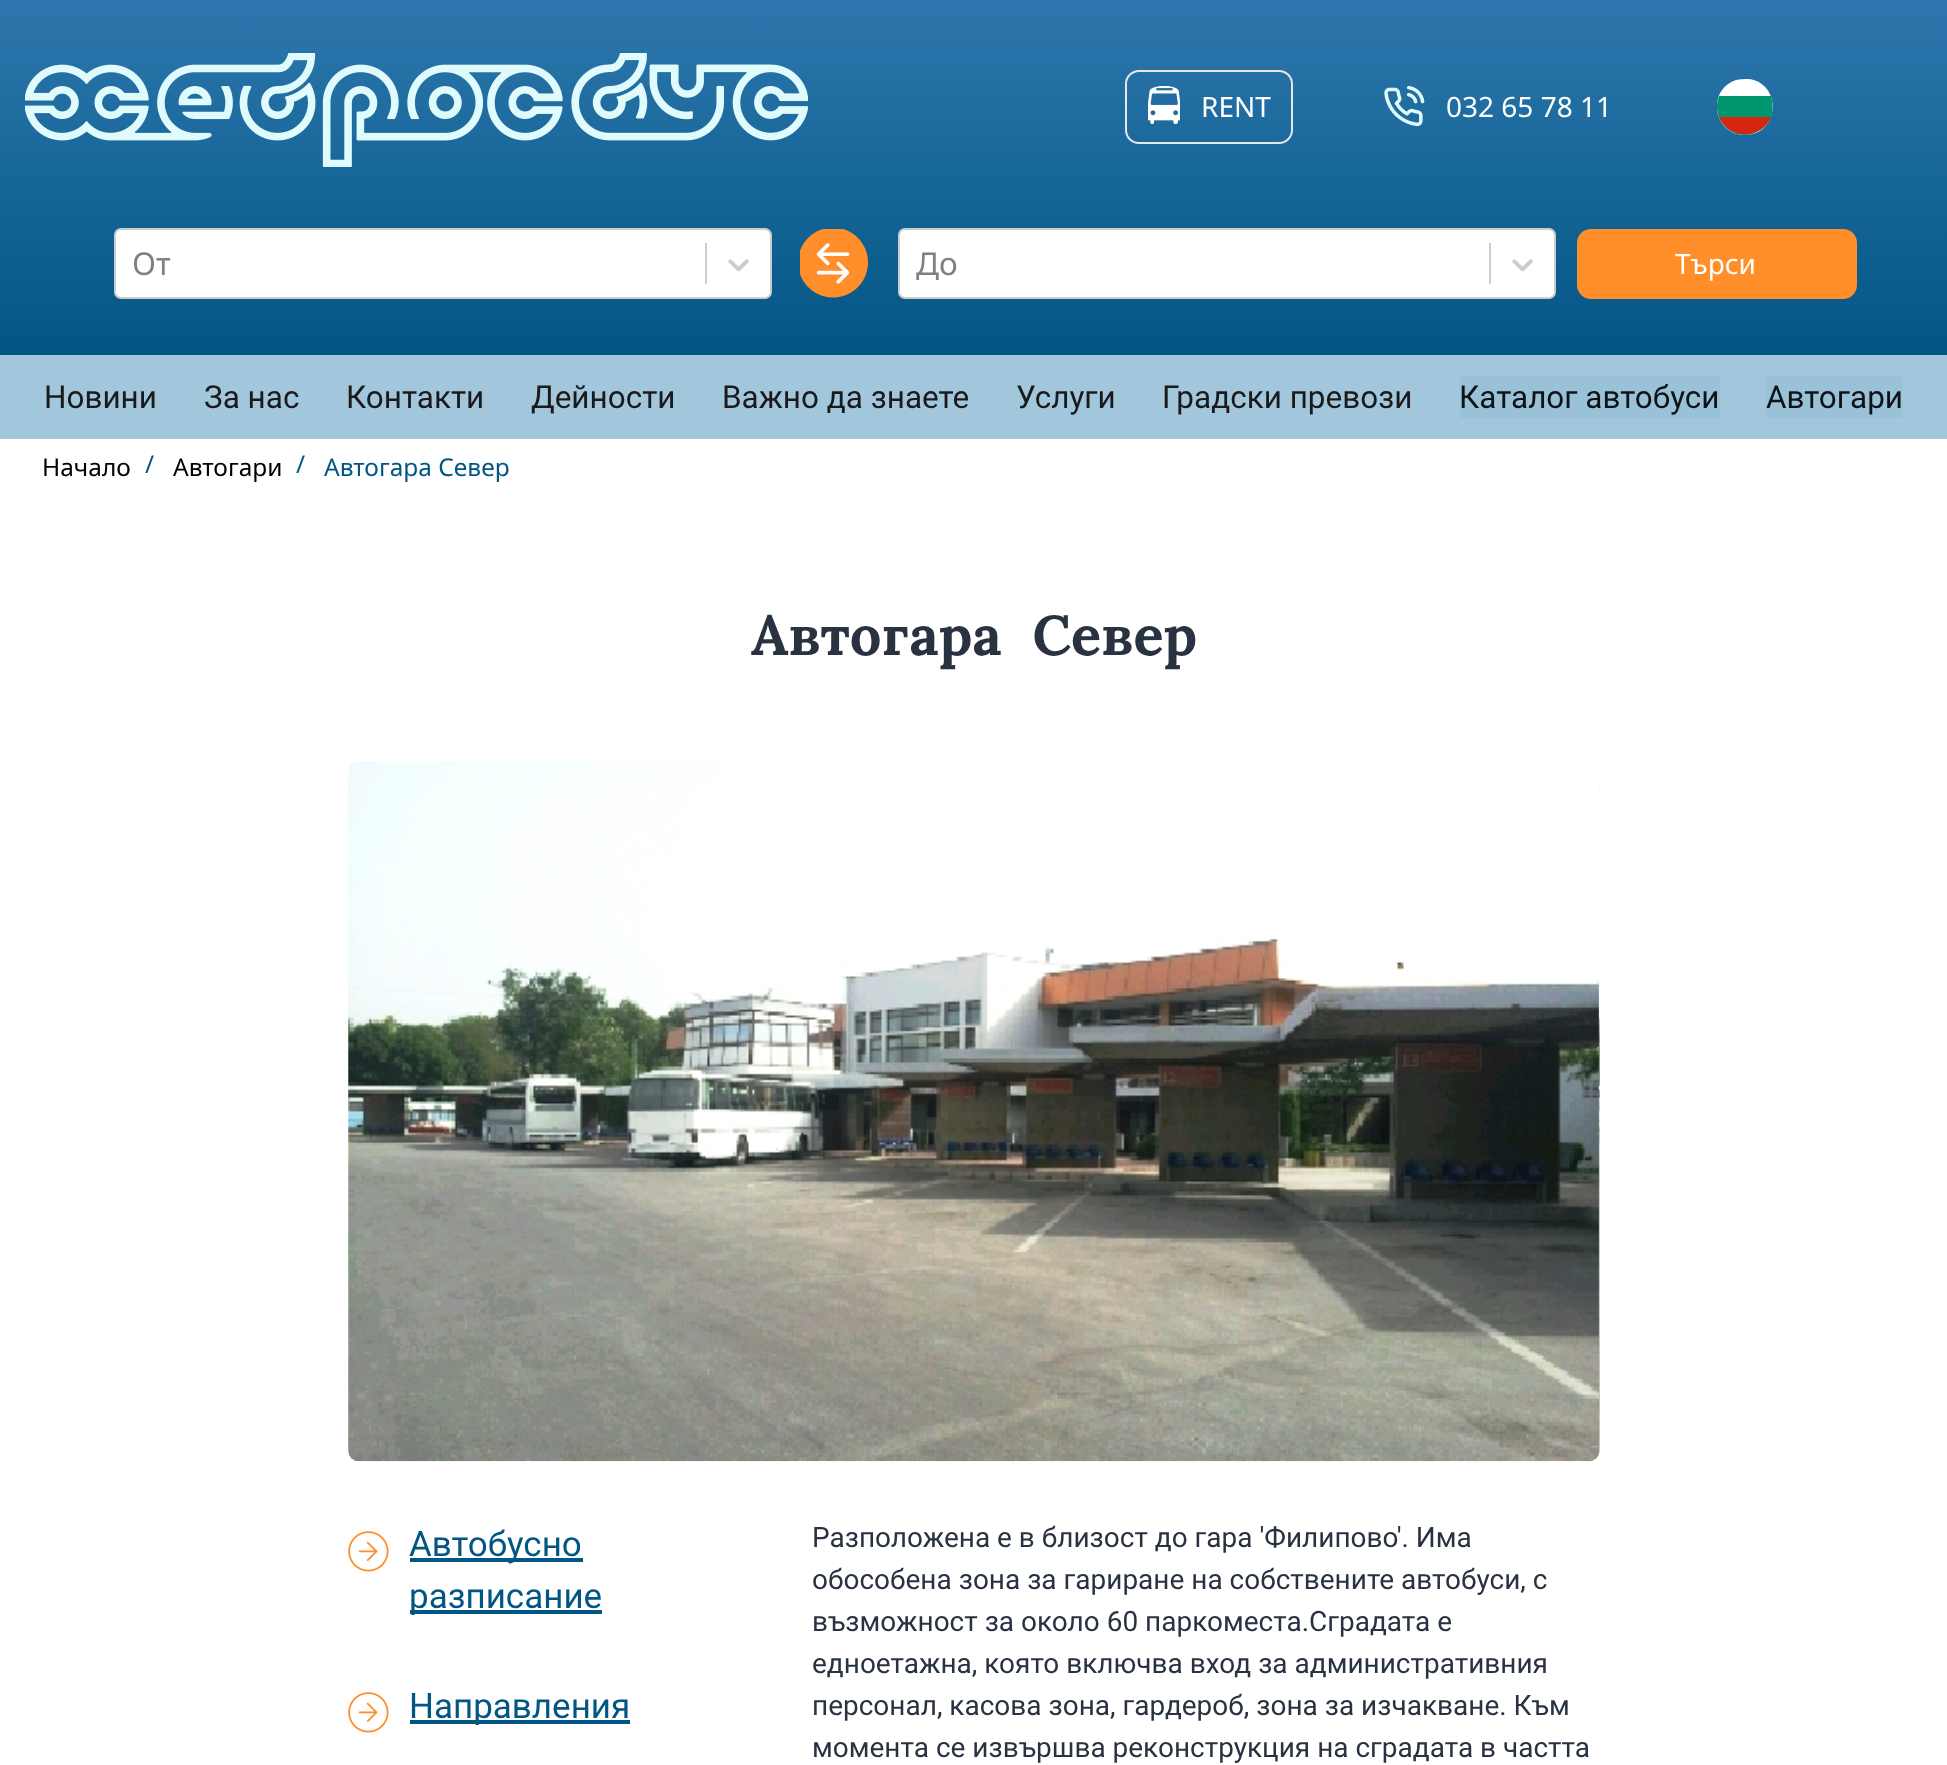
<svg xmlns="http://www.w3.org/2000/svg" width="1947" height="1765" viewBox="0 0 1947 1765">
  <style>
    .t1 { font: 28px Noto Sans; fill: #fff; }
    .t2 { font: 31.5px Noto Sans; fill: #808080; }
    .t3 { font: 31.5px Roboto; fill: #1a1a1a; }
    .t4 { font: 31.5px Roboto; fill: #0f1316; }
    .t5 { font: 24.5px Noto Sans; fill: #000; }
    .t6 { font: 24.5px Noto Sans; fill: #015684; }
    .t7 { font: bold 56px Lora; fill: #293241; }
    .t8 { font: 35px Roboto; fill: #015684; }
    .t9 { font: 28px Roboto; fill: #293241; }
  </style>
  <defs>
    <linearGradient id="g1" gradientUnits="userSpaceOnUse" x1="974" y1="0" x2="974" y2="355"><stop offset="0" stop-color="#2e77ae"/><stop offset="1" stop-color="#015684"/></linearGradient>
    <clipPath id="clip1"><rect x="1717" y="79" width="56" height="56"/></clipPath>
  </defs>
  <rect width="100%" height="100%" fill="#fff"/>
  <rect x="0" y="0" width="1947" height="355" fill="url(#g1)"/>
  <image x="25" y="53" width="783" height="114" href="images/1.png"/>
  <rect x="1126" y="71" width="166" height="72" rx="13" fill="none" stroke="#e5e7eb" stroke-width="2"/>
  <image x="1148" y="86" width="32" height="38" href="images/2.png"/>
  <text x="1201" y="117" class="t1">RENT</text>
  <image x="1384" y="86" width="41" height="41" href="images/3.png"/>
  <text x="1446" y="117" class="t1">032 65 78 11</text>
  <g clip-path="url(#clip1)">
    <path d="M1749 79C1783 84 1779 135 1745 135C1713 135 1706 90 1736 80C1740 79 1744 79 1749 79Z" fill="#fff"/>
  </g>
  <path d="M1771 96C1773 103 1773 111 1771 118C1768 123 1765 127 1760 130C1737 146 1709 121 1719 96Z" fill="#00966e"/>
  <path d="M1771 117C1762 140 1728 140 1719 117Z" fill="#d62612"/>
  <rect x="115" y="229" width="656" height="69" rx="6" fill="#fff" stroke="#ccc" stroke-width="2"/>
  <text x="132" y="275" class="t2">От</text>
  <rect x="705" y="243" width="2" height="41" fill="#ccc"/>
  <image x="728" y="259" width="21" height="13" href="images/4.png"/>
  <image x="800" y="229" width="68" height="69" href="images/5.png"/>
  <rect x="899" y="229" width="656" height="69" rx="6" fill="#fff" stroke="#ccc" stroke-width="2"/>
  <text x="916" y="275" class="t2">До</text>
  <rect x="1489" y="243" width="2" height="41" fill="#ccc"/>
  <image x="1512" y="259" width="21" height="13" href="images/4.png"/>
  <rect x="1577" y="229" width="280" height="70" rx="14" fill="#ff8e2b"/>
  <text x="1675" y="274" class="t1">Търси</text>
  <rect x="0" y="355" width="1947" height="84" fill="#98c1d9e6"/>
  <text x="44" y="408" class="t3">Новини</text>
  <text x="204" y="408" class="t3">За нас</text>
  <text x="346" y="408" class="t3">Контакти</text>
  <text x="531" y="408" class="t3">Дейности</text>
  <text x="722" y="408" class="t3">Важно да знаете</text>
  <text x="1016" y="408" class="t3">Услуги</text>
  <text x="1162" y="408" class="t3">Градски превози</text>
  <rect x="1460" y="376" width="260" height="42" fill="#99c2d9"/>
  <text x="1459" y="408" class="t4">Каталог автобуси</text>
  <rect x="1766" y="376" width="136" height="42" fill="#99c2d9"/>
  <text x="1766" y="408" class="t4">Автогари</text>
  <text x="42" y="476" class="t5">Начало</text>
  <text x="145" y="473" class="t6">/</text>
  <text x="173" y="476" class="t5">Автогари</text>
  <text x="296" y="473" class="t6">/</text>
  <text x="324" y="476" class="t6">Автогара Север</text>
  <text x="751" y="655" word-spacing="16" class="t7">Автогара Север</text>
  <image x="348" y="761" width="1251" height="701" href="images/6.png"/>
  <image x="1598" y="772" width="2" height="681" href="images/7.png"/>
  <image x="348" y="1531" width="41" height="41" href="images/8.png"/>
  <rect x="410" y="1558" width="173" height="4" fill="#015684"/>
  <text x="409" y="1556" class="t8">Автобусно</text>
  <rect x="410" y="1610" width="192" height="4" fill="#015684"/>
  <text x="409" y="1608" class="t8">разписание</text>
  <image x="348" y="1692" width="41" height="41" href="images/8.png"/>
  <rect x="410" y="1720" width="220" height="4" fill="#015684"/>
  <text x="409" y="1718" class="t8">Направления</text>
  <text x="812" y="1547" class="t9">Разположена е в близост до гара 'Филипово'. Има</text>
  <text x="812" y="1589" class="t9">обособена зона за гариране на собствените автобуси, с</text>
  <text x="812" y="1631" class="t9">възможност за около 60 паркоместа.Сградата е</text>
  <text x="812" y="1673" class="t9">едноетажна, която включва вход за административния</text>
  <text x="812" y="1715" class="t9">персонал, касова зона, гардероб, зона за изчакване. Към</text>
  <text x="812" y="1757" class="t9">момента се извършва реконструкция на сградата в частта</text>
</svg>
